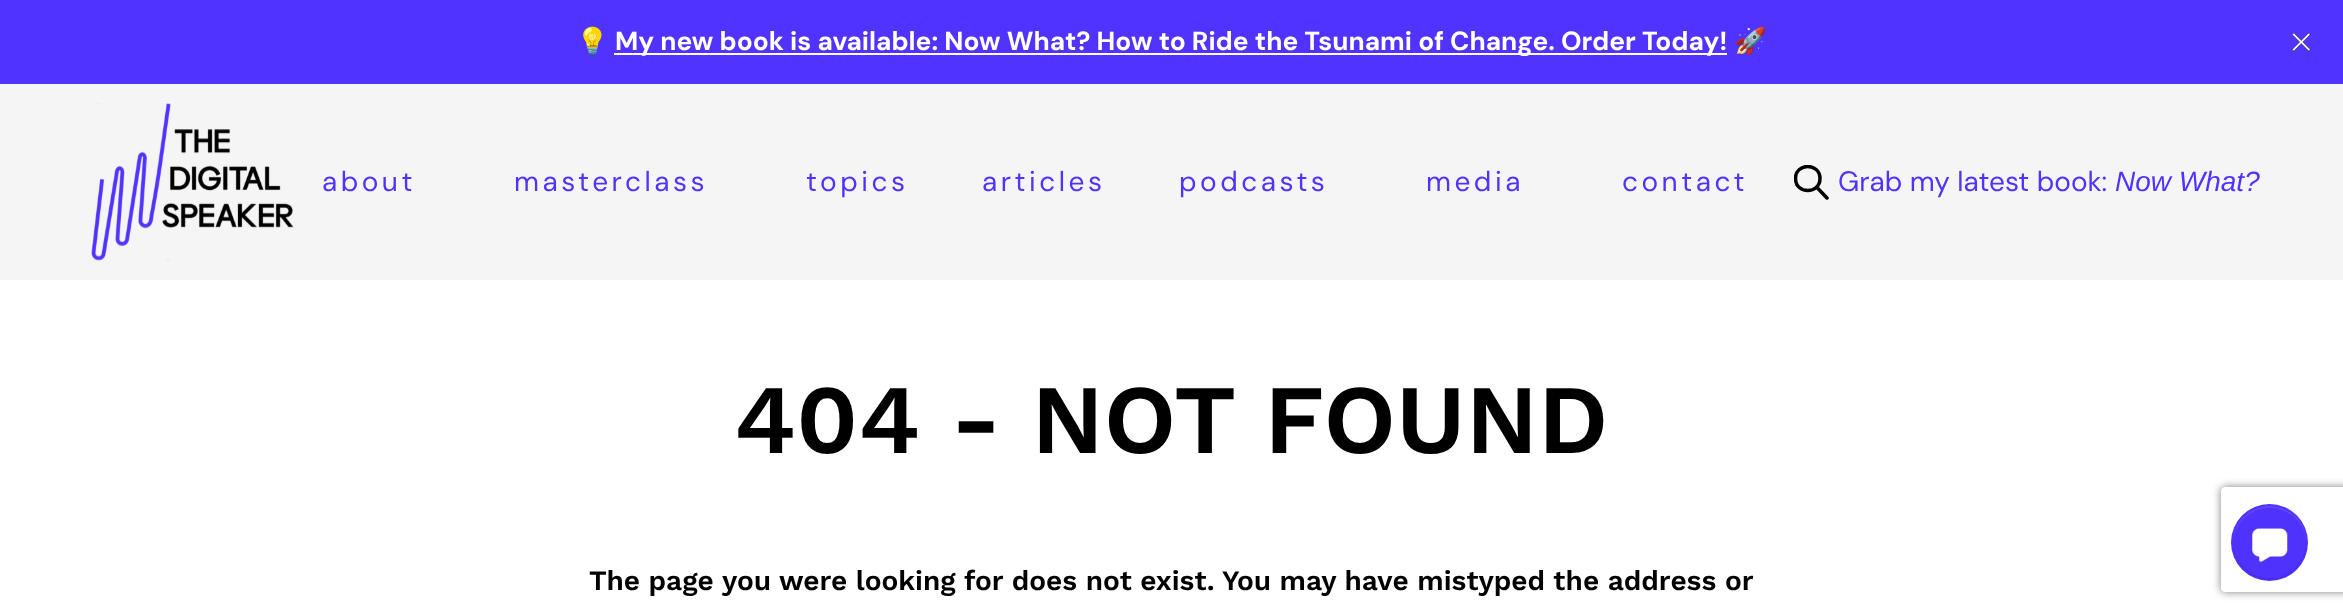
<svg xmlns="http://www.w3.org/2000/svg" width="2343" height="616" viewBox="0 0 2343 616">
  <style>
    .t1 { font: 26.25px Noto Color Emoji; fill: #fff; }
    .t2 { font: bold 26.25px DM Sans; fill: #fff; }
    .t3 { font: 28px DM Sans; letter-spacing: 3.5px; fill: #5033ff; }
    .t4 { font: 28px DM Sans; fill: #5033ff; }
    .t5 { font: italic 28px Liberation Sans; fill: #5033ff; }
    .t6 { font: 600 98px Work Sans; fill: #000; }
    .t7 { font: 600 28px Work Sans; fill: #000; }
  </style>
  <defs>
    <clipPath id="clip1"><rect x="1794" y="165" width="35" height="35"/></clipPath>
    <clipPath id="clip2"><path d="M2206 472H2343V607H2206ZM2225 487H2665C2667 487 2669 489 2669 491V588C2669 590 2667 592 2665 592H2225C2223 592 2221 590 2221 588V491C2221 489 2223 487 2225 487Z" clip-rule="evenodd"/></clipPath>
  </defs>
  <rect width="100%" height="100%" fill="#fff"/>
  <rect x="0" y="0" width="2343" height="84" fill="#5033ff"/>
  <text x="576" y="50" class="t1">💡</text>
  <rect x="614" y="53" width="1113" height="2" fill="#fff"/>
  <text x="615" y="50" class="t2">My new book is available: Now What? How to Ride the Tsunami of Change. Order Today!</text>
  <text x="1734" y="50" class="t1">🚀</text>
  <image x="2292" y="33" width="19" height="18" href="images/1.png"/>
  <rect x="0" y="84" width="2343" height="196" fill="#f5f5f5"/>
  <image x="91" y="103" width="203" height="158" href="images/2.png"/>
  <text x="322" y="191" class="t3">about</text>
  <text x="514" y="191" class="t3">masterclass</text>
  <text x="806" y="191" class="t3">topics</text>
  <text x="982" y="191" class="t3">articles</text>
  <text x="1179" y="191" class="t3">podcasts</text>
  <text x="1426" y="191" class="t3">media</text>
  <text x="1622" y="191" class="t3">contact</text>
  <g clip-path="url(#clip1)">
    <path d="M1827 198L1816.5 187M1795.5 178.5C1795.5 194.5 1820 194.5 1820 178.5C1820 162.5 1795.5 162.5 1795.5 178.5Z" fill="none" stroke="#000" stroke-width="3.5" stroke-linecap="round" stroke-linejoin="round"/>
  </g>
  <text x="1838" y="191" class="t4">Grab my latest book:</text>
  <text x="2115" y="191" class="t5">Now What?</text>
  <text x="734" y="453" class="t6">404 - NOT FOUND</text>
  <text x="589" y="590" class="t7">The page you were looking for does not exist. You may have mistyped the address or</text>
  <g clip-path="url(#clip2)">
    <rect x="2221" y="487" width="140" height="105" rx="4" fill="#808080" filter="blur(4.5px)"/>
  </g>
  <circle cx="2269.5" cy="542.5" r="38.5" fill="#5033ff"/>
  <image x="2233" y="506" width="73" height="74" href="images/3.png"/>
</svg>
